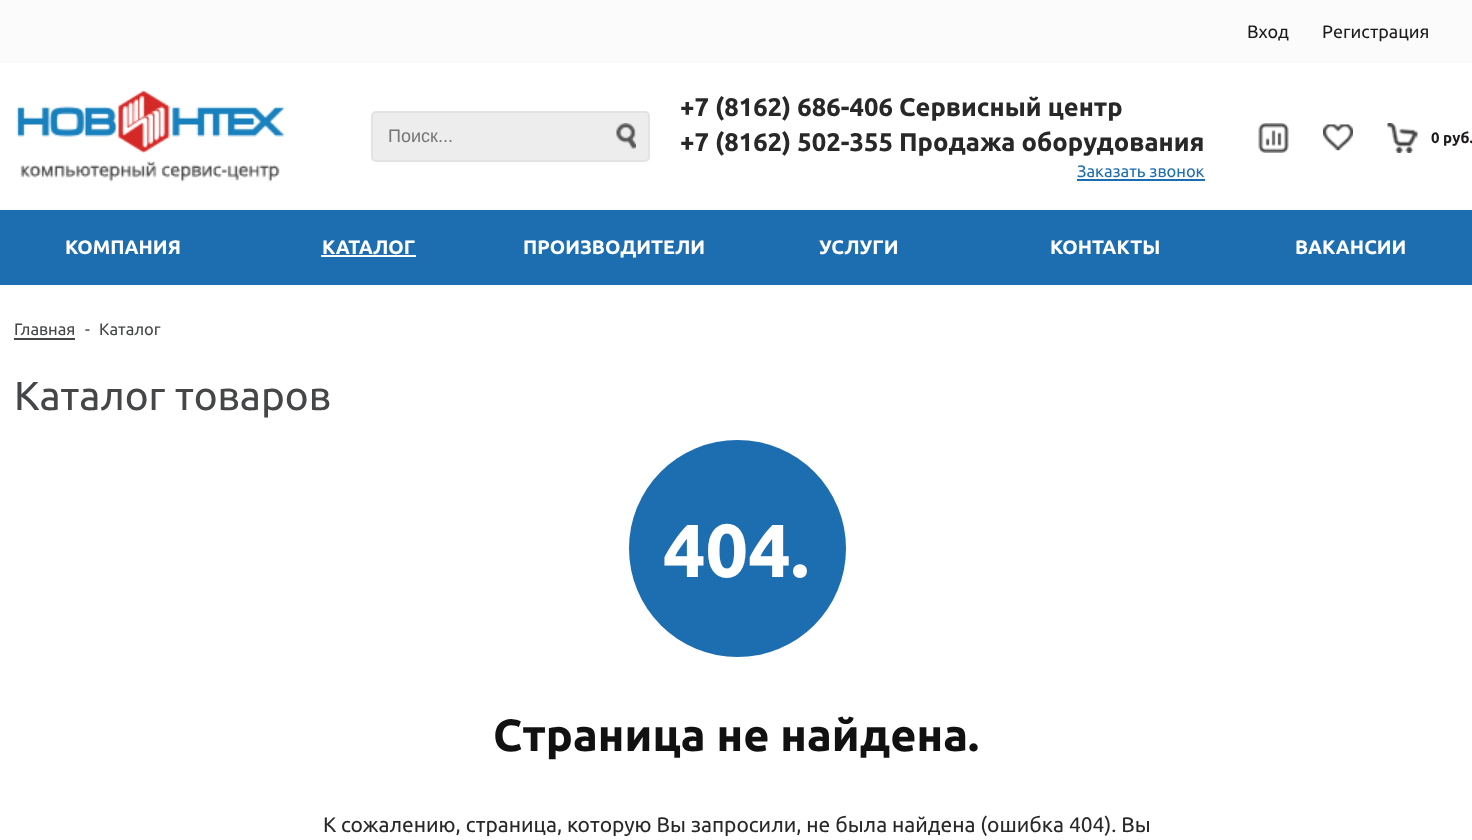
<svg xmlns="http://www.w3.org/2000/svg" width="1472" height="840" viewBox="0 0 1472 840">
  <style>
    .t1 { font: 18px Ubuntu; fill: #1d1a1a; }
    .t2 { font: 18px Liberation Sans; fill: #757575; }
    .t3 { font: bold 25.5px Ubuntu; fill: #282828; }
    .t4 { font: 16.5px Ubuntu; fill: #1d6eb1; }
    .t5 { font: bold 15px Ubuntu; fill: #1d1a1a; }
    .t6 { font: bold 19.5px Ubuntu; fill: #fff; }
    .t7 { font: 16.5px Ubuntu; fill: #444648; }
    .t8 { font: 40.5px Ubuntu; fill: #444648; }
    .t9 { font: bold 75px Ubuntu; fill: #fff; }
    .t10 { font: bold 45px Ubuntu; fill: #111; }
    .t11 { font: 21px Ubuntu; fill: #282828; }
  </style>
  <rect width="100%" height="100%" fill="#fff"/>
  <rect x="0" y="0" width="1472" height="63" fill="#fbfbfb"/>
  <text x="1247" y="38" class="t1">Вход</text>
  <text x="1322" y="38" class="t1">Регистрация</text>
  <image x="16" y="90" width="268" height="92" href="images/1.png"/>
  <rect x="372" y="112" width="277" height="49" rx="4" fill="#ededed" stroke="#e3e3e3" stroke-width="2"/>
  <text x="388" y="142" class="t2">Поиск...</text>
  <image x="616" y="123" width="20" height="26" href="images/2.png"/>
  <text x="680" y="116" class="t3">+7 (8162) 686-406 Сервисный центр</text>
  <text x="680" y="151" class="t3">+7 (8162) 502-355 Продажа оборудования</text>
  <text x="1077" y="177" class="t4">Заказать звонок</text>
  <rect x="1077" y="179" width="128" height="2" fill="#1d6eb1"/>
  <image x="1258" y="123" width="31" height="30" href="images/3.png"/>
  <image x="1323" y="124" width="30" height="27" href="images/4.png"/>
  <image x="1387" y="123" width="31" height="30" href="images/5.png"/>
  <text x="1431" y="143" class="t5">0 руб.</text>
  <rect x="0" y="210" width="1472" height="75" fill="#1d6eb1"/>
  <text x="65" y="254" class="t6">КОМПАНИЯ</text>
  <text x="322" y="254" class="t6">КАТАЛОГ</text>
  <rect x="321" y="255" width="95" height="2" fill="#fff"/>
  <text x="523" y="254" class="t6">ПРОИЗВОДИТЕЛИ</text>
  <text x="819" y="254" class="t6">УСЛУГИ</text>
  <text x="1050" y="254" class="t6">КОНТАКТЫ</text>
  <text x="1295" y="254" class="t6">ВАКАНСИИ</text>
  <text x="14" y="335" class="t7">Главная</text>
  <rect x="14" y="338" width="61" height="2" fill="#444648"/>
  <text x="85" y="335" class="t7">-</text>
  <text x="99" y="335" class="t7">Каталог</text>
  <text x="14" y="410" class="t8">Каталог товаров</text>
  <circle cx="737.5" cy="548.5" r="108.5" fill="#1d6eb1"/>
  <text x="663" y="577" class="t9">404.</text>
  <text x="493" y="751" class="t10">Страница не найдена.</text>
  <text x="323" y="832" class="t11">К сожалению, страница, которую Вы запросили, не была найдена (ошибка 404). Вы</text>
</svg>
